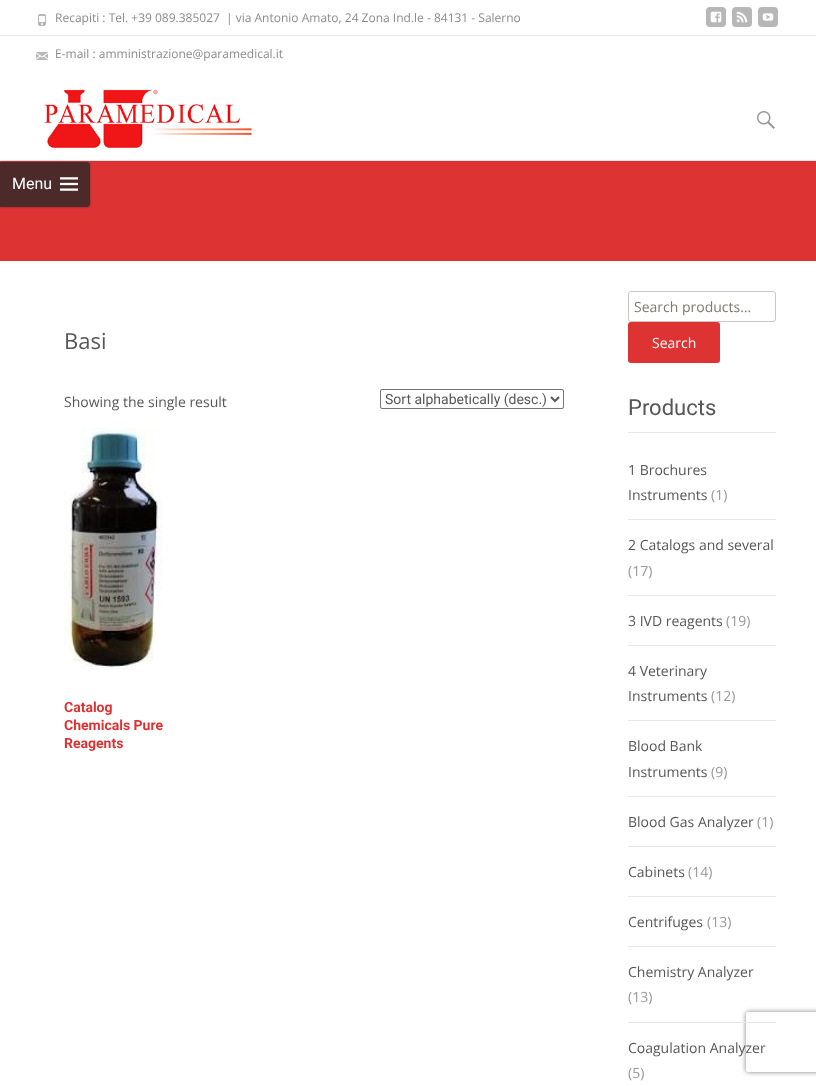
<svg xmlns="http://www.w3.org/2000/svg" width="816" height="1086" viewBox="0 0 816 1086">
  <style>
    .t1 { font: 12px Open Sans; fill: #8b8b8b; }
    .t2 { font: 16px Roboto; fill: #fff; }
    .t3 { font: 22px Open Sans; fill: #575757; }
    .t4 { font: 14px Open Sans; fill: #575757; }
    .t5 { font: 14px Roboto; fill: #575757; }
    .t6 { font: bold 14px Roboto; fill: #d33; }
    .t7 { font: 14px Open Sans; fill: #7d7b6d; }
    .t8 { font: 14px Open Sans; fill: #fff; }
    .t9 { font: 22px Roboto; fill: #575757; }
    .t10 { font: 14px Open Sans; fill: #999; }
  </style>
  <defs>
    <clipPath id="clip1"><path d="M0 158H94V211H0ZM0 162H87C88.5 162 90 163.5 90 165V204C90 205.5 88.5 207 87 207H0Z" clip-rule="evenodd"/></clipPath>
    <clipPath id="clip2"><path d="M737 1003H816V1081H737ZM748 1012H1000C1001 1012 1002 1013 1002 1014V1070C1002 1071 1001 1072 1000 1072H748C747 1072 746 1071 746 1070V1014C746 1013 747 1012 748 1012Z" clip-rule="evenodd"/></clipPath>
  </defs>
  <rect width="100%" height="100%" fill="#fff"/>
  <rect x="0" y="35" width="816" height="1" fill="#e7e7e7"/>
  <image x="38" y="14" width="8" height="12" href="images/1.png"/>
  <text x="55" y="22" class="t1">Recapiti : Tel. +39 089.385027</text>
  <text x="226" y="22" class="t1">| via Antonio Amato, 24 Zona Ind.le - 84131 - Salerno</text>
  <rect x="706" y="7" width="20" height="20" rx="4" fill="#b7b7b7"/>
  <image x="710" y="11" width="12" height="12" href="images/2.png"/>
  <rect x="732" y="7" width="20" height="20" rx="4" fill="#b7b7b7"/>
  <image x="736" y="11" width="12" height="12" href="images/3.png"/>
  <rect x="758" y="7" width="20" height="20" rx="4" fill="#b7b7b7"/>
  <image x="762" y="13" width="12" height="8" href="images/4.png"/>
  <image x="36" y="52" width="12" height="8" href="images/5.png"/>
  <text x="55" y="58" class="t1">E-mail : amministrazione@paramedical.it</text>
  <rect x="0" y="161" width="816" height="100" fill="#d33"/>
  <rect x="0" y="160" width="816" height="1" fill="#e7e7e7"/>
  <image x="44" y="89" width="208" height="59" href="images/6.png"/>
  <image x="757" y="111" width="18" height="18" href="images/7.png"/>
  <g clip-path="url(#clip1)">
    <rect x="0" y="162" width="90" height="45" rx="3" fill="#323232a3" filter="blur(1px)"/>
  </g>
  <path d="M0 162H87C88.5 162 90 163.5 90 165V204C90 205.5 88.5 207 87 207H0Z" fill="#282828cc"/>
  <text x="12" y="189" class="t2">Menu</text>
  <image x="60" y="177" width="18" height="14" href="images/8.png"/>
  <text x="64" y="349" class="t3">Basi</text>
  <text x="64" y="407" class="t4">Showing the single result</text>
  <rect x="380.5" y="389.5" width="183" height="19" rx="1.5" fill="none" stroke="#767676"/>
  <path d="M551 397L555 401L559 397" fill="none" stroke="#575757" stroke-width="2"/>
  <text x="385" y="404" class="t5">Sort alphabetically (desc.)</text>
  <image x="64" y="428" width="99" height="243" href="images/9.png"/>
  <text x="64" y="712" class="t6">Catalog</text>
  <text x="64" y="730" class="t6">Chemicals Pure</text>
  <text x="64" y="748" class="t6">Reagents</text>
  <rect x="628.5" y="291.5" width="147" height="30" rx="2.5" fill="none" stroke="#c7c7c7"/>
  <text x="634" y="312" class="t7">Search products…</text>
  <rect x="628" y="322" width="92" height="41" rx="3" fill="#d33"/>
  <text x="652" y="348" class="t8">Search</text>
  <rect x="628" y="432" width="148" height="1" fill="#e7e7e7"/>
  <text x="628" y="415" class="t9">Products</text>
  <rect x="628" y="519" width="148" height="1" fill="#e7e7e7"/>
  <text x="628" y="475" class="t4">1 Brochures</text>
  <text x="628" y="500" class="t4">Instruments</text>
  <text x="711" y="500" class="t10">(1)</text>
  <rect x="628" y="595" width="148" height="1" fill="#e7e7e7"/>
  <text x="628" y="550" class="t4">2 Catalogs and several</text>
  <text x="628" y="576" class="t10">(17)</text>
  <rect x="628" y="645" width="148" height="1" fill="#e7e7e7"/>
  <text x="628" y="626" class="t4">3 IVD reagents</text>
  <text x="726" y="626" class="t10">(19)</text>
  <rect x="628" y="720" width="148" height="1" fill="#e7e7e7"/>
  <text x="628" y="676" class="t4">4 Veterinary</text>
  <text x="628" y="701" class="t4">Instruments</text>
  <text x="711" y="701" class="t10">(12)</text>
  <rect x="628" y="796" width="148" height="1" fill="#e7e7e7"/>
  <text x="628" y="751" class="t4">Blood Bank</text>
  <text x="628" y="777" class="t4">Instruments</text>
  <text x="711" y="777" class="t10">(9)</text>
  <rect x="628" y="846" width="148" height="1" fill="#e7e7e7"/>
  <text x="628" y="827" class="t4">Blood Gas Analyzer</text>
  <text x="757" y="827" class="t10">(1)</text>
  <rect x="628" y="896" width="148" height="1" fill="#e7e7e7"/>
  <text x="628" y="877" class="t4">Cabinets</text>
  <text x="688" y="877" class="t10">(14)</text>
  <rect x="628" y="946" width="148" height="1" fill="#e7e7e7"/>
  <text x="628" y="927" class="t4">Centrifuges</text>
  <text x="707" y="927" class="t10">(13)</text>
  <g clip-path="url(#clip2)">
    <rect x="746" y="1012" width="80" height="60" rx="2" fill="#808080" filter="blur(2.5px)"/>
  </g>
  <rect x="628" y="1022" width="148" height="1" fill="#e7e7e7"/>
  <text x="628" y="977" class="t4">Chemistry Analyzer</text>
  <text x="628" y="1002" class="t10">(13)</text>
  <text x="628" y="1053" class="t4">Coagulation Analyzer</text>
  <text x="628" y="1078" class="t10">(5)</text>
</svg>
